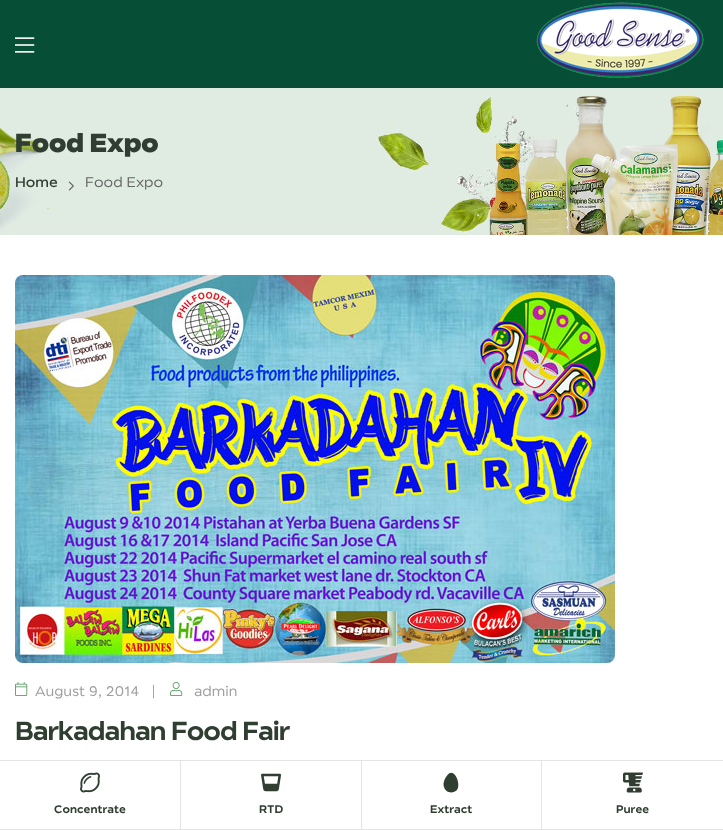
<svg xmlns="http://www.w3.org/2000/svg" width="723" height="830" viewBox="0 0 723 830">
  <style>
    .t1 { font: 900 26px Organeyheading; fill: #2f3e30; }
    .t2 { font: 500 14px Organeyheading; fill: #2f3e30; }
    .t3 { font: 14px Organeyheading; fill: #656766; }
    .t4 { font: 14px Organeyheading; fill: #9f9f9f; }
    .t5 { font: 600 26px Organeyheading; letter-spacing: -1px; fill: #2f3e30; }
    .t6 { font: 600 11px Organeyheading; fill: #2f3e30; }
  </style>
  <rect width="100%" height="100%" fill="#fff"/>
  <rect x="0" y="0" width="723" height="88" fill="#074e37"/>
  <image x="15" y="37" width="20" height="16" href="images/1.png"/>
  <image x="536" y="2" width="168" height="76" href="images/2.png"/>
  <image x="0" y="88" width="723" height="147" href="images/3.png"/>
  <text x="15" y="152" class="t1">Food Expo</text>
  <text x="15" y="187" class="t2">Home</text>
  <image x="68" y="181" width="6" height="10" href="images/4.png"/>
  <text x="85" y="187" class="t3">Food Expo</text>
  <image x="15" y="275" width="600" height="388" href="images/5.png"/>
  <image x="15" y="682" width="13" height="14" href="images/6.png"/>
  <text x="35" y="696" class="t4">August 9, 2014</text>
  <text x="150" y="696" class="t4">|</text>
  <image x="170" y="682" width="13" height="14" href="images/7.png"/>
  <text x="194" y="696" class="t4">admin</text>
  <text x="15" y="740" class="t5">Barkadahan Food Fair</text>
  <rect x="0" y="760" width="723" height="1" fill="#e4e4e4"/>
  <rect x="0" y="829" width="723" height="1" fill="#e4e4e4"/>
  <rect x="180" y="761" width="1" height="68" fill="#e4e4e4"/>
  <image x="80" y="772" width="20" height="21" href="images/8.png"/>
  <text x="54" y="813" class="t6">Concentrate</text>
  <rect x="361" y="761" width="1" height="68" fill="#e4e4e4"/>
  <image x="261" y="773" width="20" height="19" href="images/9.png"/>
  <text x="259" y="813" class="t6">RTD</text>
  <rect x="541" y="761" width="1" height="68" fill="#e4e4e4"/>
  <path d="M447.5 775C454 766.5 461.5 784 457 790C453 794 445.5 793 444 787C442.5 783 445 778 447.5 775Z" fill="#2f3e30"/>
  <text x="430" y="813" class="t6">Extract</text>
  <image x="623" y="772" width="20" height="21" href="images/10.png"/>
  <text x="616" y="813" class="t6">Puree</text>
</svg>
